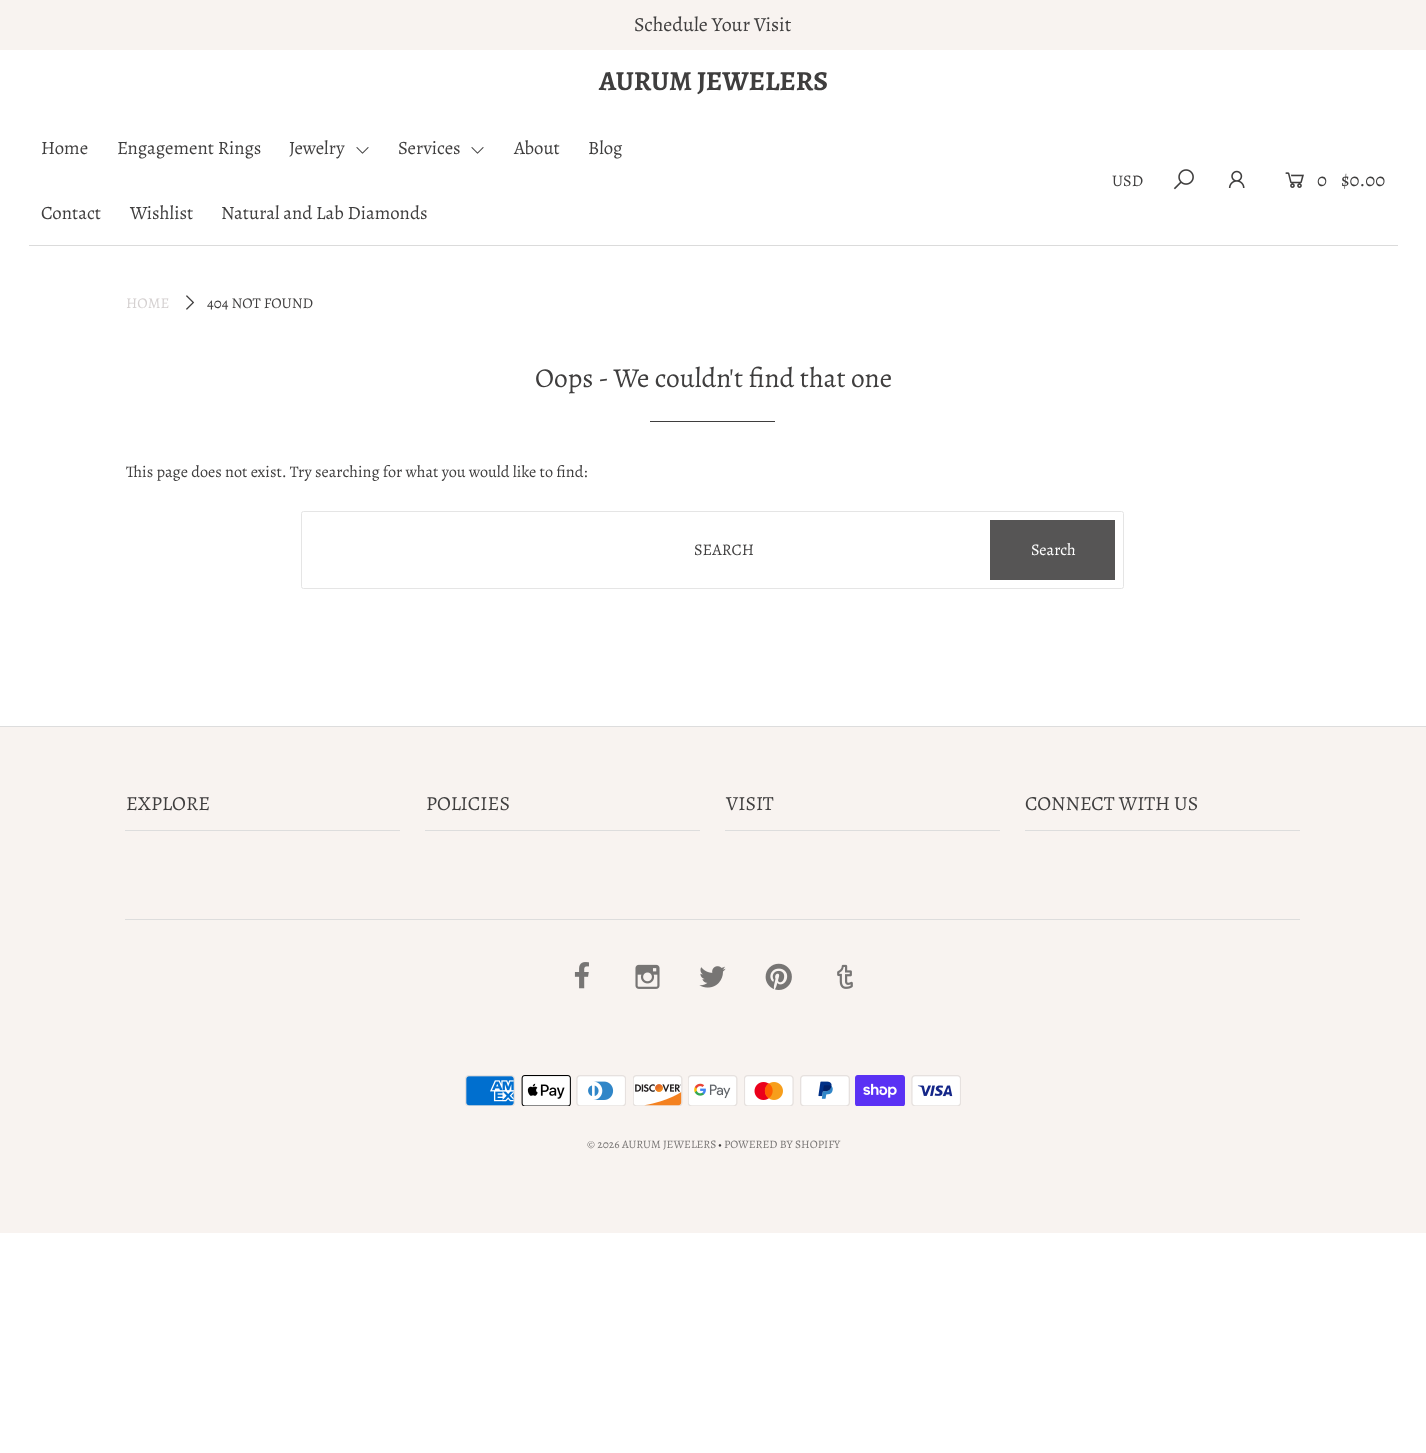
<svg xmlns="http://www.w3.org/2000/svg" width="1426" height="1453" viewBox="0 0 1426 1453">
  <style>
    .t1 { font: 20px Alegreya; fill: #3f3e3e; }
    .t2 { font: bold 27.5px Alegreya; fill: #3f3e3e; }
    .t3 { font: 18.75px Alegreya; fill: #3f3e3e; }
    .t4 { font: 16.25px Alegreya; fill: #3f3e3e; }
    .t5 { font: 15px Alegreya; fill: #d4d0d0; }
    .t6 { font: 15px Alegreya; fill: #3f3e3e; }
    .t7 { font: 27.5px Alegreya; fill: #3f3e3e; }
    .t8 { font: 16.25px Alegreya; fill: #fff; }
    .t9 { font: 11.5px Alegreya; fill: #777473; }
    .t10 { font: 11.5px Alegreya; fill: #3f3e3e; }
  </style>
  <rect width="100%" height="100%" fill="#fff"/>
  <rect x="0" y="0" width="1426" height="50" fill="#f8f3f0"/>
  <text x="634" y="31" class="t1">Schedule Your Visit</text>
  <rect x="29" y="245" width="1369" height="1" fill="#dbdbdb"/>
  <text x="599" y="90" class="t2">AURUM JEWELERS</text>
  <text x="41" y="154" class="t3">Home</text>
  <text x="117" y="154" class="t3">Engagement Rings</text>
  <text x="289" y="154" class="t3">Jewelry</text>
  <image x="356" y="147" width="13" height="7" href="images/1.png"/>
  <text x="398" y="154" class="t3">Services</text>
  <image x="471" y="147" width="13" height="7" href="images/1.png"/>
  <text x="514" y="154" class="t3">About</text>
  <text x="588" y="154" class="t3">Blog</text>
  <text x="41" y="219" class="t3">Contact</text>
  <text x="130" y="219" class="t3">Wishlist</text>
  <text x="221" y="219" class="t3">Natural and Lab Diamonds</text>
  <text x="1112" y="186" class="t4">USD</text>
  <image x="1173" y="169" width="21" height="21" href="images/2.png"/>
  <image x="1228" y="170" width="17" height="18" href="images/3.png"/>
  <image x="1285" y="172" width="19" height="16" href="images/4.png"/>
  <text x="1317" y="186" class="t3">0</text>
  <text x="1341" y="186" class="t3">$0.00</text>
  <text x="126" y="308" class="t5">HOME</text>
  <image x="186" y="295" width="9" height="15" href="images/5.png"/>
  <text x="207" y="308" class="t6">404 NOT FOUND</text>
  <text x="535" y="387" class="t7">Oops - We couldn't find that one</text>
  <rect x="650" y="421" width="125" height="1" fill="#3f3e3e"/>
  <text x="126" y="477" class="t4">This page does not exist. Try searching for what you would like to find:</text>
  <rect x="301.5" y="511.5" width="822" height="77" rx="2" fill="none" stroke="#e5e5e5"/>
  <text x="694" y="555" class="t4">SEARCH</text>
  <rect x="990" y="520" width="125" height="60" fill="#565555"/>
  <text x="1031" y="555" class="t8">Search</text>
  <rect x="0" y="727" width="1426" height="506" fill="#f8f3f0"/>
  <rect x="0" y="726" width="1426" height="1" fill="#ddd"/>
  <rect x="125" y="830" width="275" height="1" fill="#ddd"/>
  <text x="126" y="810" class="t1">EXPLORE</text>
  <rect x="425" y="830" width="275" height="1" fill="#ddd"/>
  <text x="426" y="810" class="t1">POLICIES</text>
  <rect x="725" y="830" width="275" height="1" fill="#ddd"/>
  <text x="726" y="810" class="t1">VISIT</text>
  <rect x="1025" y="830" width="275" height="1" fill="#ddd"/>
  <text x="1025" y="810" class="t1">CONNECT WITH US</text>
  <rect x="125" y="919" width="1175" height="1" fill="#ddd"/>
  <image x="574" y="962" width="15" height="27" href="images/6.png"/>
  <image x="635" y="964" width="25" height="25" href="images/7.png"/>
  <image x="699" y="966" width="27" height="22" href="images/8.png"/>
  <image x="765" y="963" width="27" height="27" href="images/9.png"/>
  <image x="837" y="964" width="16" height="25" href="images/10.png"/>
  <image x="465" y="1075" width="50" height="31" href="images/11.png"/>
  <image x="521" y="1075" width="50" height="31" href="images/12.png"/>
  <image x="576" y="1075" width="50" height="31" href="images/13.png"/>
  <image x="633" y="1075" width="50" height="31" href="images/14.png"/>
  <image x="688" y="1075" width="50" height="31" href="images/15.png"/>
  <image x="744" y="1075" width="50" height="31" href="images/16.png"/>
  <image x="800" y="1075" width="50" height="31" href="images/17.png"/>
  <image x="855" y="1075" width="50" height="31" href="images/18.png"/>
  <image x="911" y="1075" width="50" height="31" href="images/19.png"/>
  <text x="587" y="1148" class="t9">© 2026 AURUM JEWELERS</text>
  <text x="718" y="1148" class="t10">•</text>
  <text x="724" y="1148" class="t9">POWERED BY SHOPIFY</text>
</svg>
